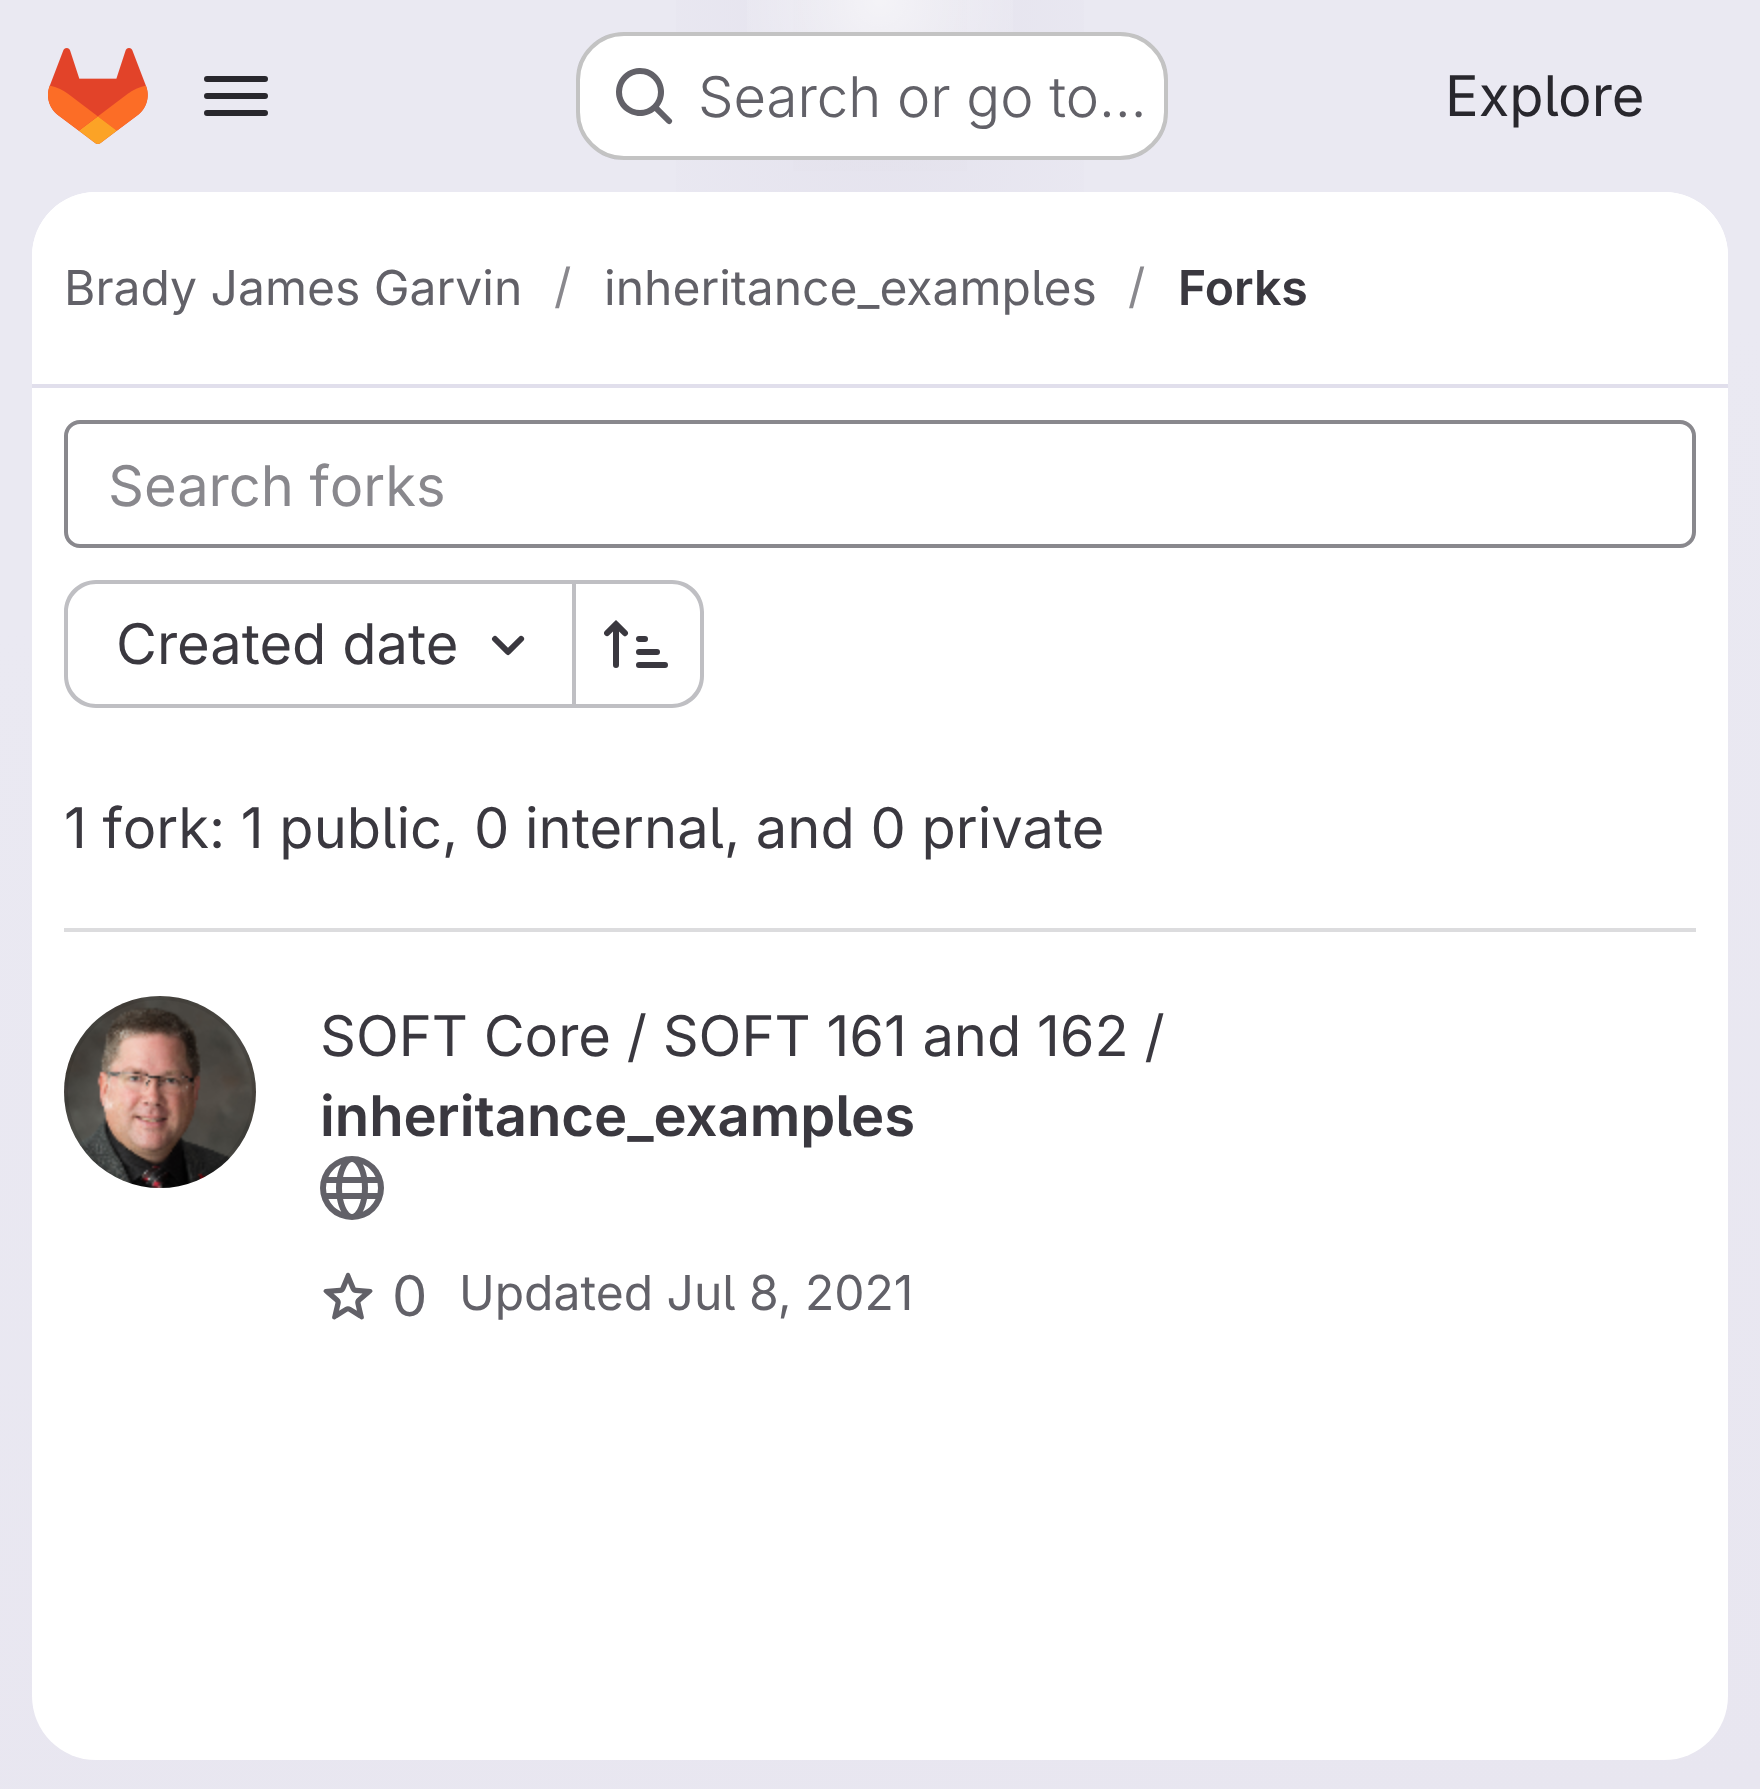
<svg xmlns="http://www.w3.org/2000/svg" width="1760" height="1789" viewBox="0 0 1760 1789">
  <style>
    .t1 { font: 300 56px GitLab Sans; fill: #626168; }
    .t2 { font: 56px GitLab Sans; fill: #28272d; }
    .t3 { font: 48px GitLab Sans; fill: #626168; }
    .t4 { font: 48px GitLab Sans; fill: #89888d; }
    .t5 { font: 600 48px GitLab Sans; fill: #3a383f; }
    .t6 { font: 56px GitLab Sans; fill: #89888d; }
    .t7 { font: 56px GitLab Sans; fill: #3a383f; }
    .t8 { font: 600 56px GitLab Sans; fill: #3a383f; }
    .t9 { font: 56px GitLab Sans; fill: #626168; }
  </style>
  <defs>
    <linearGradient id="g1" gradientUnits="userSpaceOnUse" x1="1060" y1="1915" x2="700" y2="-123"><stop offset="0" stop-color="#e8e6f0"/><stop offset="0.7" stop-color="#eae9f2"/></linearGradient>
    <radialGradient id="g2" gradientUnits="userSpaceOnUse" cx="0" cy="0" r="1" gradientTransform="matrix(880 0 0 1792 880 0)"><stop offset="0" stop-color="#e4e2ed"/><stop offset="0.32" stop-color="#e4e2ed" stop-opacity="0"/></radialGradient>
    <radialGradient id="g3" gradientUnits="userSpaceOnUse" cx="0" cy="0" r="1" gradientTransform="matrix(880 0 0 1792 880 0)"><stop offset="0" stop-color="#e4e2ec"/><stop offset="0.23" stop-color="#e4e2ec" stop-opacity="0"/></radialGradient>
    <radialGradient id="g4" gradientUnits="userSpaceOnUse" cx="880" cy="0" r="1996"><stop offset="0" stop-color="#fff" stop-opacity="0.6"/><stop offset="0.08" stop-color="#fff" stop-opacity="0"/></radialGradient>
  </defs>
  <rect width="100%" height="100%" fill="#fff"/>
  <rect x="0" y="0" width="1760" height="1789" fill="url(#g1)"/>
  <rect x="676" y="0" width="408" height="192" fill="url(#g2)"/>
  <rect x="793" y="0" width="174" height="171" fill="url(#g3)"/>
  <rect x="747" y="0" width="266" height="32" fill="url(#g4)"/>
  <image x="48" y="48" width="100" height="96" href="images/1.png"/>
  <image x="204" y="76" width="64" height="40" href="images/2.png"/>
  <rect x="576" y="32" width="592" height="128" rx="48" fill="#fff"/>
  <rect x="578" y="34" width="588" height="124" rx="46" fill="none" stroke="#0505063d" stroke-width="4"/>
  <image x="616" y="68" width="57" height="57" href="images/3.png"/>
  <text x="698" y="117" class="t1">Search or go to…</text>
  <text x="1445" y="116" class="t2">Explore</text>
  <rect x="32" y="192" width="1696" height="1568" rx="64" fill="#fff"/>
  <path d="M96 192H1664C1699.5 192 1728 220.5 1728 256V388H32V256C32 220.5 60.5 192 96 192Z" fill="#fff"/>
  <rect x="32" y="384" width="1696" height="4" fill="#e1dfec"/>
  <text x="64" y="305" class="t3">Brady James Garvin</text>
  <text x="554" y="303" class="t4">/</text>
  <text x="604" y="305" class="t3">inheritance_examples</text>
  <text x="1128" y="303" class="t4">/</text>
  <text x="1178" y="305" class="t5">Forks</text>
  <rect x="64" y="928" width="1632" height="4" fill="#dcdcde"/>
  <rect x="66" y="422" width="1628" height="124" rx="14" fill="none" stroke="#89888d" stroke-width="4"/>
  <text x="108" y="506" class="t6">Search forks</text>
  <path d="M96 580H572V708H96C78 708 64 694 64 676V612C64 594 78 580 96 580ZM96 584H572V704H96C81 704 68 691 68 676V612C68 597 81 584 96 584Z" fill="#bfbfc3" fill-rule="evenodd"/>
  <text x="116" y="664" class="t7">Created date</text>
  <image x="491" y="635" width="34" height="21" href="images/4.png"/>
  <path d="M576 580H672C690 580 704 594 704 612V676C704 694 690 708 672 708H576ZM576 584H672C687 584 700 597 700 612V676C700 691 687 704 672 704H576Z" fill="#bfbfc3" fill-rule="evenodd"/>
  <rect x="572" y="580" width="4" height="128" fill="#bfbfc3"/>
  <image x="604" y="620" width="64" height="48" href="images/5.png"/>
  <text x="64" y="848" class="t7">1 fork: 1 public, 0 internal, and 0 private</text>
  <image x="64" y="996" width="192" height="192" href="images/6.png"/>
  <circle cx="160" cy="1092" r="94" fill="none" stroke="#05050614" stroke-width="4"/>
  <text x="320" y="1056" class="t7">SOFT Core / SOFT 161 and 162 /</text>
  <text x="320" y="1136" class="t8">inheritance_examples</text>
  <image x="320" y="1156" width="64" height="64" href="images/7.png"/>
  <image x="323" y="1272" width="50" height="48" href="images/8.png"/>
  <text x="392" y="1316" class="t9">0</text>
  <text x="459" y="1310" class="t3">Updated Jul 8, 2021</text>
</svg>
